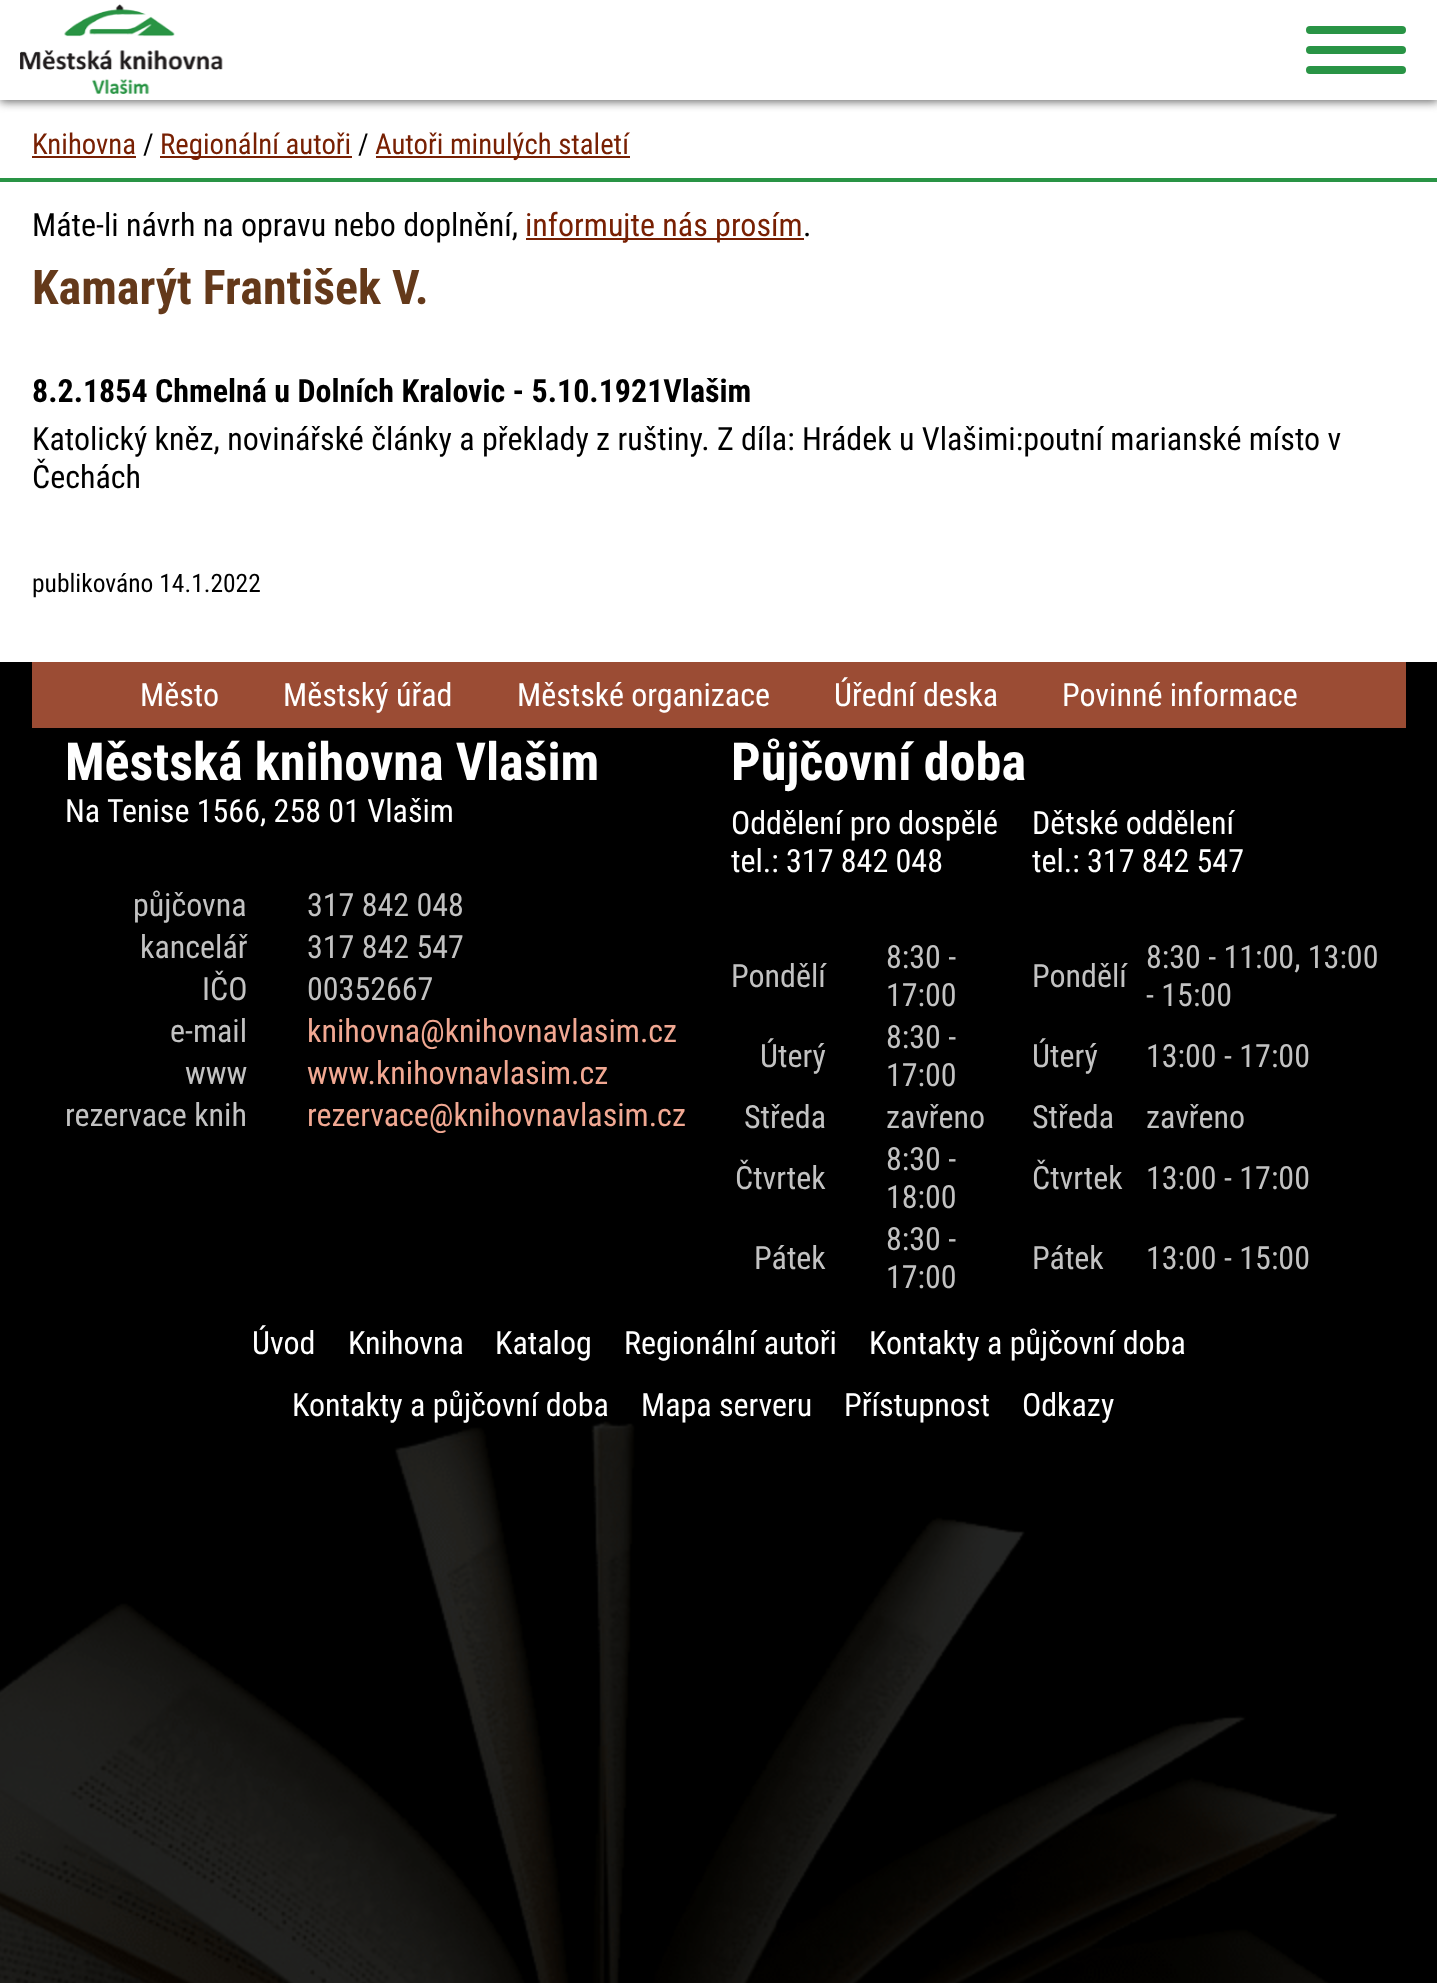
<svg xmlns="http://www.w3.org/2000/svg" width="1437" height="1983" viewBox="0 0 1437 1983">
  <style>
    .t1 { font: 28.75px Roboto Condensed; fill: #782003; }
    .t2 { font: 28.75px Roboto Condensed; fill: #000; }
    .t3 { font: 32px Roboto Condensed; fill: #000; }
    .t4 { font: 32px Roboto Condensed; fill: #782003; }
    .t5 { font: bold 48px Roboto Condensed; fill: #64391a; }
    .t6 { font: bold 32px Roboto Condensed; fill: #000; }
    .t7 { font: 25.5px Roboto Condensed; fill: #000; }
    .t8 { font: 32px Roboto Condensed; fill: #fff; }
    .t9 { font: bold 52.25px Roboto Condensed; fill: #fff; }
    .t10 { font: 32px Roboto Condensed; fill: #c2c2c2; }
    .t11 { font: 32px Roboto Condensed; fill: #f1a892; }
  </style>
  <rect width="100%" height="100%" fill="#fff"/>
  <rect x="0" y="2" width="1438" height="100" fill="#6c6c6c" filter="blur(5px)"/>
  <rect x="0" y="0" width="1437" height="100" fill="#fff"/>
  <image x="20" y="4" width="203" height="90" href="images/1.png"/>
  <rect x="1306" y="26" width="100" height="8" rx="4" fill="#299445"/>
  <rect x="1306" y="46" width="100" height="8" rx="4" fill="#299445"/>
  <rect x="1306" y="66" width="100" height="8" rx="4" fill="#299445"/>
  <rect x="0" y="178" width="1437" height="4" fill="#299445"/>
  <text x="32" y="154" class="t1">Knihovna</text>
  <rect x="32" y="156" width="104" height="2" fill="#782003"/>
  <text x="143" y="154" class="t2">/</text>
  <rect x="160" y="156" width="192" height="2" fill="#782003"/>
  <text x="160" y="154" class="t1">Regionální autoři</text>
  <text x="358" y="154" class="t2">/</text>
  <rect x="376" y="156" width="254" height="2" fill="#782003"/>
  <text x="375" y="154" class="t1">Autoři minulých staletí</text>
  <text x="32" y="236" class="t3">Máte-li návrh na opravu nebo doplnění,</text>
  <rect x="526" y="238" width="278" height="2" fill="#782003"/>
  <text x="525" y="236" class="t4">informujte nás prosím</text>
  <text x="803" y="236" class="t3">.</text>
  <text x="32" y="304" class="t5">Kamarýt František V.</text>
  <text x="32" y="402" class="t6">8.2.1854 Chmelná u Dolních Kralovic - 5.10.1921Vlašim</text>
  <text x="32" y="450" class="t3">Katolický kněz, novinářské články a překlady z ruštiny. Z díla: Hrádek u Vlašimi:poutní marianské místo v</text>
  <text x="32" y="488" class="t3">Čechách</text>
  <text x="32" y="592" class="t7">publikováno 14.1.2022</text>
  <rect x="0" y="662" width="1437" height="1321" fill="#000"/>
  <rect x="32" y="662" width="1374" height="66" fill="#9b4c34"/>
  <text x="140" y="706" class="t8">Město</text>
  <text x="283" y="706" class="t8">Městský úřad</text>
  <text x="517" y="706" class="t8">Městské organizace</text>
  <text x="834" y="706" class="t8">Úřední deska</text>
  <text x="1062" y="706" class="t8">Povinné informace</text>
  <text x="65" y="780" class="t9">Městská knihovna Vlašim</text>
  <text x="65" y="822" class="t8">Na Tenise 1566, 258 01 Vlašim</text>
  <text x="133" y="916" class="t10">půjčovna</text>
  <text x="307" y="916" class="t10">317 842 048</text>
  <text x="140" y="958" class="t10">kancelář</text>
  <text x="307" y="958" class="t10">317 842 547</text>
  <text x="202" y="1000" class="t10">IČO</text>
  <text x="307" y="1000" class="t10">00352667</text>
  <text x="170" y="1042" class="t10">e-mail</text>
  <text x="307" y="1042" class="t11">knihovna@knihovnavlasim.cz</text>
  <text x="185" y="1084" class="t10">www</text>
  <text x="307" y="1084" class="t11">www.knihovnavlasim.cz</text>
  <text x="65" y="1126" class="t10">rezervace knih</text>
  <text x="307" y="1126" class="t11">rezervace@knihovnavlasim.cz</text>
  <text x="731" y="780" class="t9">Půjčovní doba</text>
  <text x="731" y="834" class="t8">Oddělení pro dospělé</text>
  <text x="731" y="872" class="t8">tel.: 317 842 048</text>
  <text x="1032" y="834" class="t8">Dětské oddělení</text>
  <text x="1032" y="872" class="t8">tel.: 317 842 547</text>
  <text x="731" y="987" class="t10">Pondělí</text>
  <text x="886" y="968" class="t10">8:30 -</text>
  <text x="886" y="1006" class="t10">17:00</text>
  <text x="1032" y="987" class="t10">Pondělí</text>
  <text x="1146" y="968" class="t10">8:30 - 11:00, 13:00</text>
  <text x="1146" y="1006" class="t10">- 15:00</text>
  <text x="760" y="1067" class="t10">Úterý</text>
  <text x="886" y="1048" class="t10">8:30 -</text>
  <text x="886" y="1086" class="t10">17:00</text>
  <text x="1032" y="1067" class="t10">Úterý</text>
  <text x="1146" y="1067" class="t10">13:00 - 17:00</text>
  <text x="744" y="1128" class="t10">Středa</text>
  <text x="886" y="1128" class="t10">zavřeno</text>
  <text x="1032" y="1128" class="t10">Středa</text>
  <text x="1146" y="1128" class="t10">zavřeno</text>
  <text x="735" y="1189" class="t10">Čtvrtek</text>
  <text x="886" y="1170" class="t10">8:30 -</text>
  <text x="886" y="1208" class="t10">18:00</text>
  <text x="1032" y="1189" class="t10">Čtvrtek</text>
  <text x="1146" y="1189" class="t10">13:00 - 17:00</text>
  <text x="754" y="1269" class="t10">Pátek</text>
  <text x="886" y="1250" class="t10">8:30 -</text>
  <text x="886" y="1288" class="t10">17:00</text>
  <text x="1032" y="1269" class="t10">Pátek</text>
  <text x="1146" y="1269" class="t10">13:00 - 15:00</text>
  <text x="252" y="1354" class="t8">Úvod</text>
  <text x="348" y="1354" class="t8">Knihovna</text>
  <text x="495" y="1354" class="t8">Katalog</text>
  <text x="624" y="1354" class="t8">Regionální autoři</text>
  <text x="869" y="1354" class="t8">Kontakty a půjčovní doba</text>
  <image x="0" y="1421" width="1337" height="562" href="images/2.png"/>
  <text x="292" y="1416" class="t8">Kontakty a půjčovní doba</text>
  <text x="641" y="1416" class="t8">Mapa serveru</text>
  <text x="844" y="1416" class="t8">Přístupnost</text>
  <text x="1022" y="1416" class="t8">Odkazy</text>
</svg>
